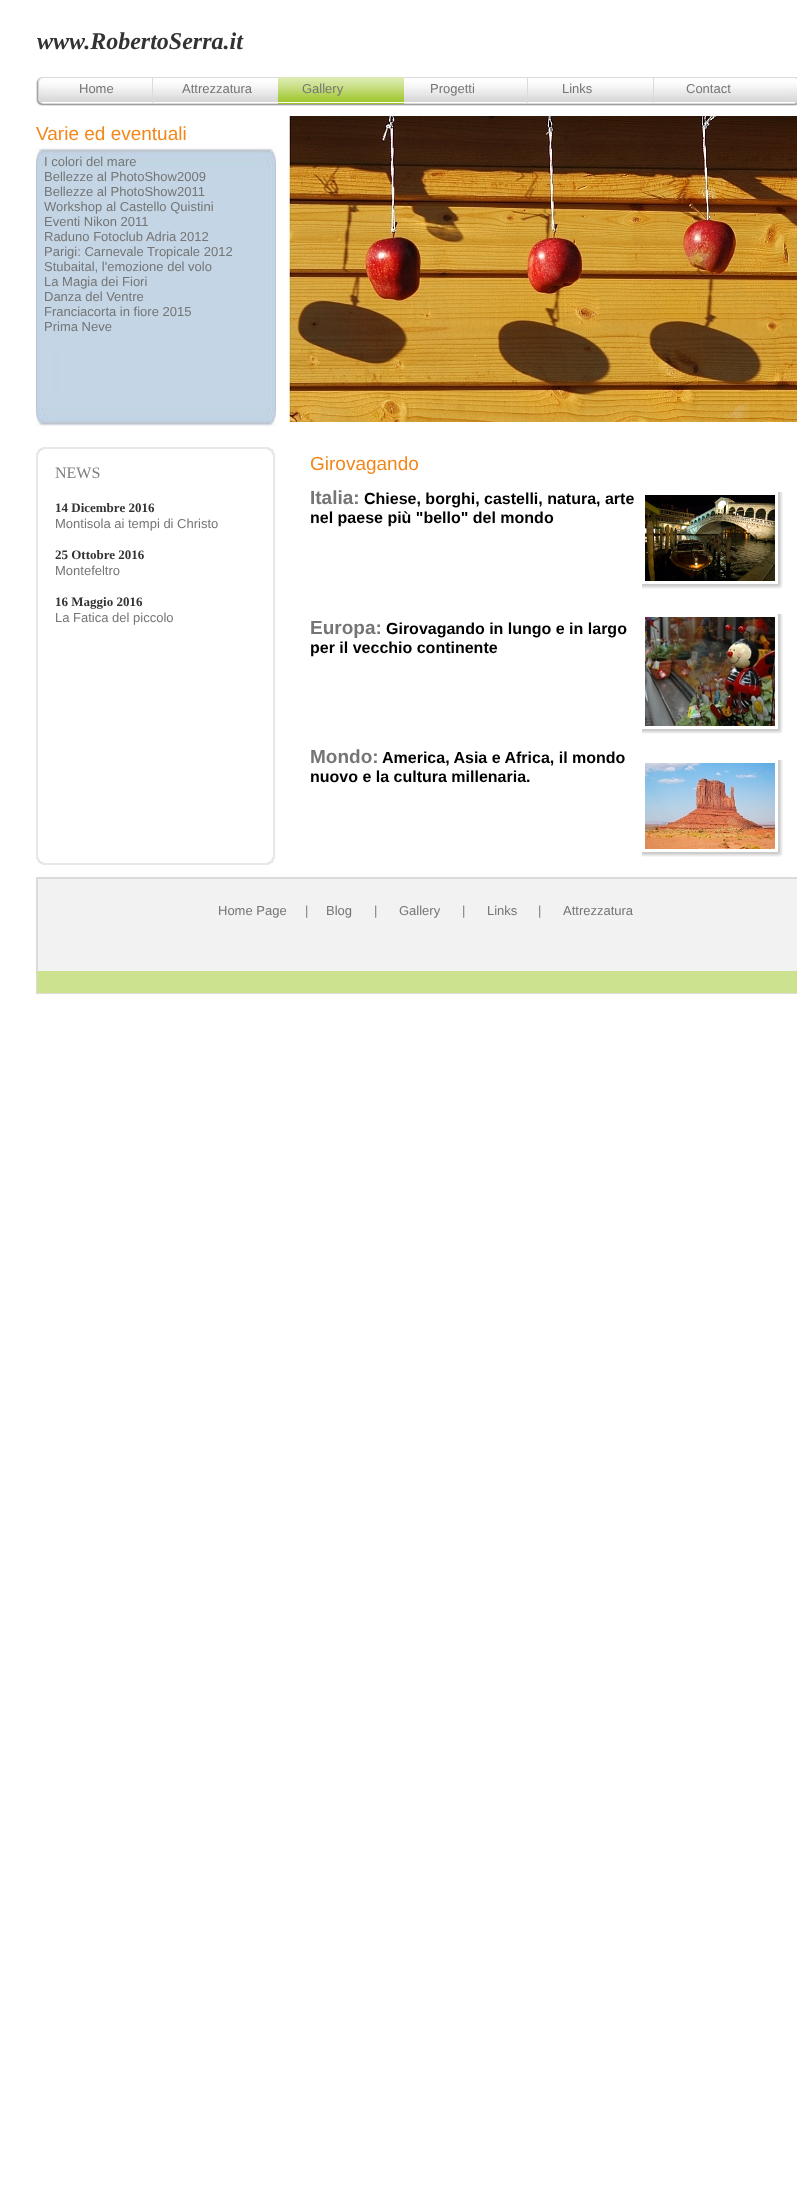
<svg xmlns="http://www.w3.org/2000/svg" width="797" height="2202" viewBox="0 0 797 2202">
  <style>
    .t1 { font: italic bold 24px Liberation Serif; fill: #333; }
    .t2 { font: 13px Liberation Sans; fill: #757575; }
    .t3 { font: 19px Liberation Sans; fill: #f3871b; }
    .t4 { font: bold 19px Liberation Sans; fill: #757575; }
    .t5 { font: bold 16px Liberation Sans; fill: #000; }
    .t6 { font: 16px Liberation Serif; fill: #808080; }
    .t7 { font: bold 13px Liberation Serif; fill: #333; }
    .t8 { font: 13px Liberation Sans; fill: #808080; }
  </style>
  <rect width="100%" height="100%" fill="#fff"/>
  <text x="37" y="49" class="t1">www.RobertoSerra.it</text>
  <image x="36" y="77" width="761" height="29" href="images/1.png"/>
  <rect x="152" y="78" width="1" height="25" fill="#dbdbdb"/>
  <image x="278" y="77" width="126" height="28" href="images/2.png"/>
  <rect x="527" y="78" width="1" height="25" fill="#dbdbdb"/>
  <rect x="653" y="78" width="1" height="25" fill="#dbdbdb"/>
  <text x="79" y="93" class="t2">Home</text>
  <text x="182" y="93" class="t2">Attrezzatura</text>
  <text x="302" y="93" class="t2">Gallery</text>
  <text x="430" y="93" class="t2">Progetti</text>
  <text x="562" y="93" class="t2">Links</text>
  <text x="686" y="93" class="t2">Contact</text>
  <text x="36" y="140" class="t3">Varie ed eventuali</text>
  <image x="289" y="116" width="508" height="306" href="images/3.png"/>
  <image x="36" y="147" width="240" height="280" href="images/4.png"/>
  <text x="44" y="166" class="t2">I colori del mare</text>
  <text x="44" y="181" class="t2">Bellezze al PhotoShow2009</text>
  <text x="44" y="196" class="t2">Bellezze al PhotoShow2011</text>
  <text x="44" y="211" class="t2">Workshop al Castello Quistini</text>
  <text x="44" y="226" class="t2">Eventi Nikon 2011</text>
  <text x="44" y="241" class="t2">Raduno Fotoclub Adria 2012</text>
  <text x="44" y="256" class="t2">Parigi: Carnevale Tropicale 2012</text>
  <text x="44" y="271" class="t2">Stubaital, l'emozione del volo</text>
  <text x="44" y="286" class="t2">La Magia dei Fiori</text>
  <text x="44" y="301" class="t2">Danza del Ventre</text>
  <text x="44" y="316" class="t2">Franciacorta in fiore 2015</text>
  <text x="44" y="331" class="t2">Prima Neve</text>
  <image x="36" y="447" width="239" height="418" href="images/5.png"/>
  <text x="310" y="470" class="t3">Girovagando</text>
  <text x="310" y="504" class="t4">Italia:</text>
  <text x="364" y="504" class="t5">Chiese, borghi, castelli, natura, arte</text>
  <text x="310" y="523" class="t5">nel paese più "bello" del mondo</text>
  <text x="310" y="634" class="t4">Europa:</text>
  <text x="386" y="634" class="t5">Girovagando in lungo e in largo</text>
  <text x="310" y="653" class="t5">per il vecchio continente</text>
  <text x="310" y="763" class="t4">Mondo:</text>
  <text x="382" y="763" class="t5">America, Asia e Africa, il mondo</text>
  <text x="310" y="782" class="t5">nuovo e la cultura millenaria.</text>
  <text x="55" y="478" class="t6">NEWS</text>
  <text x="55" y="512" class="t7">14 Dicembre 2016</text>
  <text x="55" y="528" class="t2">Montisola ai tempi di Christo</text>
  <text x="55" y="559" class="t7">25 Ottobre 2016</text>
  <text x="55" y="575" class="t2">Montefeltro</text>
  <text x="55" y="606" class="t7">16 Maggio 2016</text>
  <text x="55" y="622" class="t2">La Fatica del piccolo</text>
  <image x="642" y="492" width="141" height="97" href="images/6.png"/>
  <image x="645" y="495" width="130" height="86" href="images/7.png"/>
  <image x="642" y="614" width="141" height="120" href="images/8.png"/>
  <image x="645" y="617" width="130" height="109" href="images/9.png"/>
  <image x="642" y="760" width="141" height="97" href="images/6.png"/>
  <image x="645" y="763" width="130" height="86" href="images/10.png"/>
  <image x="36" y="877" width="761" height="117" href="images/11.png"/>
  <text x="218" y="915" class="t2">Home Page</text>
  <text x="305" y="915" class="t8">|</text>
  <text x="326" y="915" class="t2">Blog</text>
  <text x="374" y="915" class="t8">|</text>
  <text x="399" y="915" class="t2">Gallery</text>
  <text x="462" y="915" class="t8">|</text>
  <text x="487" y="915" class="t2">Links</text>
  <text x="538" y="915" class="t8">|</text>
  <text x="563" y="915" class="t2">Attrezzatura</text>
  <rect x="37" y="971" width="760" height="22" fill="#cce28f"/>
</svg>
